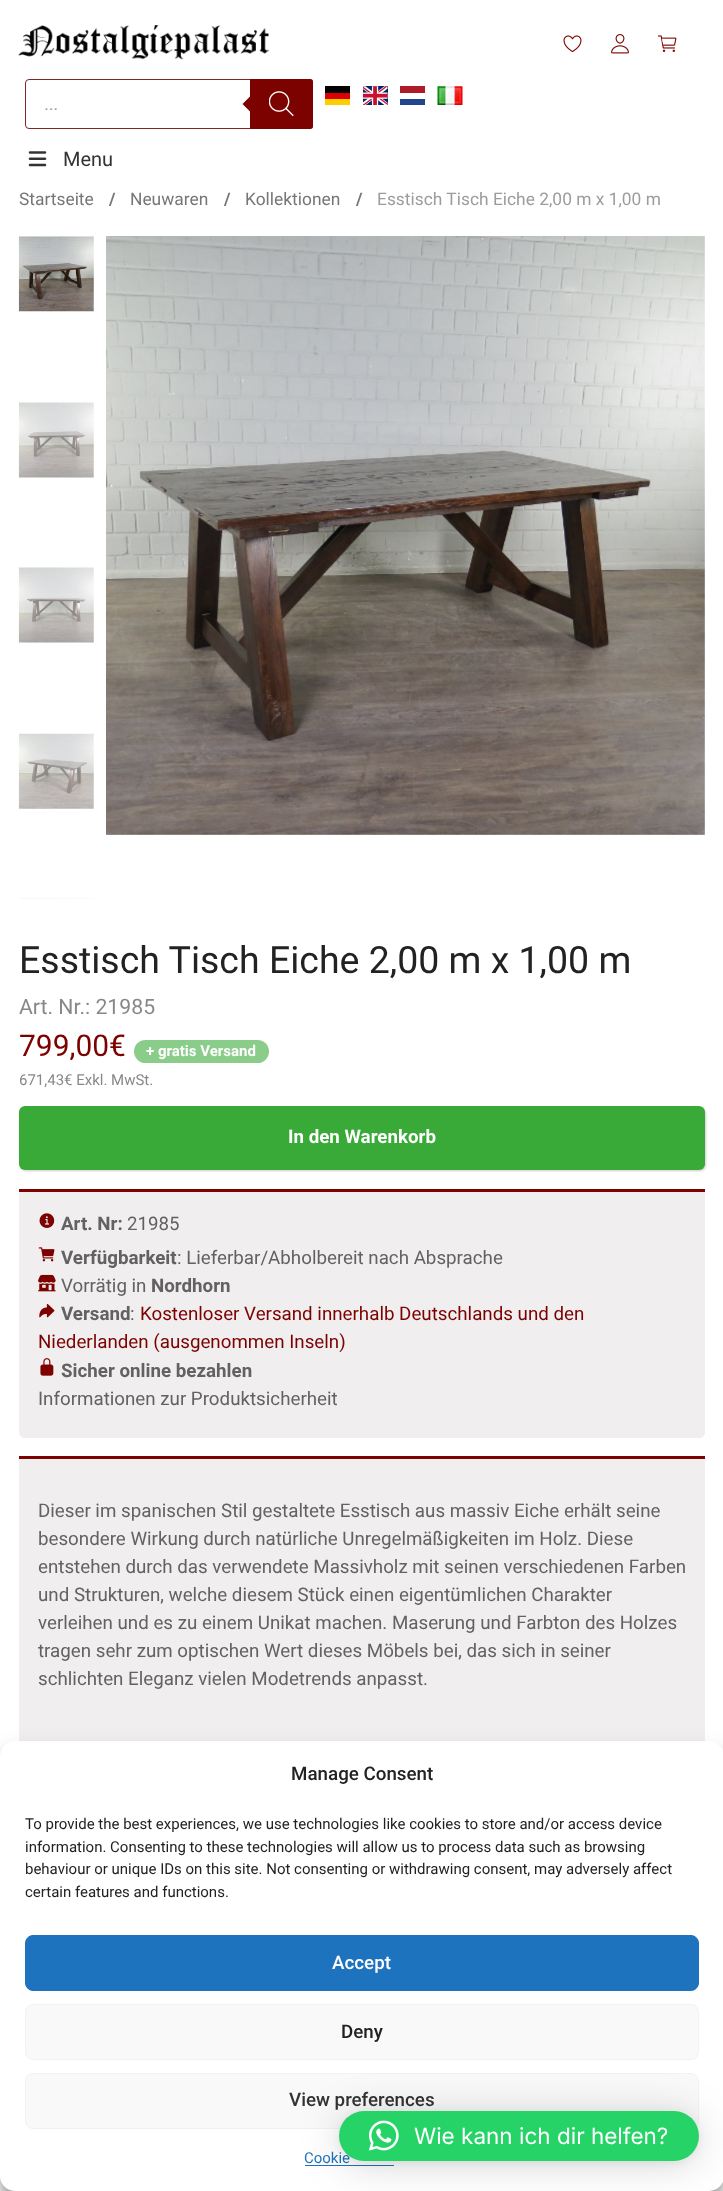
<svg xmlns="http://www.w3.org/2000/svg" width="723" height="2191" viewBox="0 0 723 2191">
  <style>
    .t1 { font: italic 18px Roboto; fill: #9c9c9c; }
    .t2 { font: 20px Roboto; fill: #333; }
    .t3 { font: 17.4px Roboto; fill: #767676; }
    .t4 { font: bold 17.4px Roboto; fill: #767676; }
    .t5 { font: 17.4px Roboto; fill: #9c9c9c; }
    .t6 { font: 37.5px Roboto; fill: #222; }
    .t7 { font: 21.25px Roboto; fill: #888; }
    .t8 { font: 30px Roboto; fill: #7c0200; }
    .t9 { font: bold 15px Roboto; fill: #fff; }
    .t10 { font: 15px Roboto; fill: #888; }
    .t11 { font: bold 18.75px Roboto; fill: #fff; }
    .t12 { font: bold 18.75px Roboto; fill: #626262; }
    .t13 { font: 18.75px Roboto; fill: #626262; }
    .t14 { font: 18.75px Roboto; fill: #7c0200; }
    .t15 { font: 500 18.75px Roboto; fill: #222; }
    .t16 { font: 15px Roboto; fill: #222; }
    .t17 { font: 500 18.75px Roboto; fill: #fff; }
    .t18 { font: 500 18.75px Roboto; fill: #333; }
    .t19 { font: 15px Roboto; fill: #1e73be; }
    .t20 { font: 22.5px Inter; fill: #fff; }
  </style>
  <rect width="100%" height="100%" fill="#fff"/>
  <image x="18" y="25" width="251" height="35" href="images/1.png"/>
  <image x="563" y="35" width="19" height="17" href="images/2.png"/>
  <image x="611" y="34" width="18" height="20" href="images/3.png"/>
  <image x="657" y="35" width="20" height="17" href="images/4.png"/>
  <rect x="325" y="86" width="25" height="7" fill="#000"/>
  <rect x="325" y="93" width="25" height="6" fill="#d00"/>
  <rect x="325" y="99" width="25" height="6" fill="#ffce00"/>
  <image x="363" y="86" width="25" height="19" href="images/5.png"/>
  <rect x="400" y="86" width="25" height="7" fill="#ae1c28"/>
  <rect x="400" y="99" width="25" height="6" fill="#21468b"/>
  <image x="437" y="86" width="26" height="19" href="images/6.png"/>
  <rect x="25.5" y="79.5" width="287" height="49" rx="3.5" fill="none" stroke="#842723"/>
  <text x="45" y="110" class="t1">...</text>
  <path d="M250 79H310.5C312 79 313 80 313 81.5V126.5C313 128 312 129 310.5 129H250Z" fill="#7c0200"/>
  <path d="M252.5 94V114L242.5 104Z" fill="#7c0200"/>
  <image x="269" y="91" width="25" height="26" href="images/7.png"/>
  <image x="28" y="151" width="19" height="16" href="images/8.png"/>
  <text x="63" y="166" class="t2">Menu</text>
  <text x="19" y="205" class="t3">Startseite</text>
  <text x="109" y="205" class="t4">/</text>
  <text x="130" y="205" class="t3">Neuwaren</text>
  <text x="224" y="205" class="t4">/</text>
  <text x="245" y="205" class="t3">Kollektionen</text>
  <text x="356" y="205" class="t4">/</text>
  <text x="377" y="205" class="t5">Esstisch Tisch Eiche 2,00 m x 1,00 m</text>
  <image x="18" y="236" width="76" height="76" href="images/9.png"/>
  <image x="18" y="402" width="76" height="76" href="images/10.png"/>
  <image x="18" y="567" width="76" height="76" href="images/11.png"/>
  <image x="18" y="733" width="76" height="76" href="images/12.png"/>
  <image x="19" y="898" width="75" height="1" href="images/13.png"/>
  <image x="106" y="236" width="599" height="599" href="images/14.png"/>
  <text x="19" y="973" class="t6">Esstisch Tisch Eiche 2,00 m x 1,00 m</text>
  <text x="19" y="1014" class="t7">Art. Nr.: 21985</text>
  <text x="19" y="1056" class="t8">799,00€</text>
  <rect x="134" y="1040" width="135" height="23" rx="11.5" fill="#8acc8a"/>
  <text x="146" y="1056" class="t9">+ gratis Versand</text>
  <text x="19" y="1085" class="t10">671,43€ Exkl. MwSt.</text>
  <rect x="20" y="1108" width="686" height="63" rx="6" fill="#00000033" filter="blur(1px)"/>
  <rect x="19" y="1106" width="686" height="64" rx="6" fill="#39a938"/>
  <text x="288" y="1143" class="t11">In den Warenkorb</text>
  <path d="M19 1189H705V1432C705 1435.5 702.5 1438 699 1438H25C21.5 1438 19 1435.5 19 1432Z" fill="#f0eeef"/>
  <rect x="19" y="1189" width="686" height="3" fill="#7c0300"/>
  <image x="39" y="1213" width="16" height="15" href="images/15.png"/>
  <text x="61" y="1230" class="t12">Art. Nr:</text>
  <text x="127" y="1230" class="t13">21985</text>
  <image x="38" y="1247" width="17" height="15" href="images/16.png"/>
  <text x="61" y="1264" class="t12">Verfügbarkeit</text>
  <text x="177" y="1264" class="t13">: Lieferbar/Abholbereit nach Absprache</text>
  <image x="38" y="1274" width="18" height="18" href="images/17.png"/>
  <text x="61" y="1292" class="t13">Vorrätig in</text>
  <text x="151" y="1292" class="t12">Nordhorn</text>
  <image x="39" y="1303" width="16" height="15" href="images/18.png"/>
  <text x="61" y="1320" class="t12">Versand</text>
  <text x="130" y="1320" class="t13">:</text>
  <text x="140" y="1320" class="t14">Kostenloser Versand innerhalb Deutschlands und den</text>
  <text x="38" y="1348" class="t14">Niederlanden (ausgenommen Inseln)</text>
  <image x="40" y="1358" width="14" height="18" href="images/19.png"/>
  <text x="61" y="1377" class="t12">Sicher online bezahlen</text>
  <text x="38" y="1405" class="t13">Informationen zur Produktsicherheit</text>
  <rect x="19" y="1459" width="686" height="282" fill="#f0eeef"/>
  <rect x="19" y="1456" width="686" height="3" fill="#7c0300"/>
  <text x="38" y="1517" class="t13">Dieser im spanischen Stil gestaltete Esstisch aus massiv Eiche erhält seine</text>
  <text x="38" y="1545" class="t13">besondere Wirkung durch natürliche Unregelmäßigkeiten im Holz. Diese</text>
  <text x="38" y="1573" class="t13">entstehen durch das verwendete Massivholz mit seinen verschiedenen Farben</text>
  <text x="38" y="1601" class="t13">und Strukturen, welche diesem Stück einen eigentümlichen Charakter</text>
  <text x="38" y="1629" class="t13">verleihen und es zu einem Unikat machen. Maserung und Farbton des Holzes</text>
  <text x="38" y="1657" class="t13">tragen sehr zum optischen Wert dieses Möbels bei, das sich in seiner</text>
  <text x="38" y="1685" class="t13">schlichten Eleganz vielen Modetrends anpasst.</text>
  <rect x="0" y="1749" width="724" height="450" rx="15" fill="#0000003b" filter="blur(4px)"/>
  <rect x="0" y="1754" width="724" height="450" rx="15" fill="#00000030" filter="blur(12.5px)"/>
  <rect x="0" y="1741" width="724" height="450" rx="15" fill="#fff"/>
  <text x="291" y="1780" class="t15">Manage Consent</text>
  <text x="25" y="1829" class="t16">To provide the best experiences, we use technologies like cookies to store and/or access device</text>
  <text x="25" y="1852" class="t16">information. Consenting to these technologies will allow us to process data such as browsing</text>
  <text x="25" y="1874" class="t16">behaviour or unique IDs on this site. Not consenting or withdrawing consent, may adversely affect</text>
  <text x="25" y="1897" class="t16">certain features and functions.</text>
  <rect x="25.5" y="1935.5" width="673" height="55" rx="7.5" fill="#1e73be" stroke="#1e73be"/>
  <text x="332" y="1969" class="t17">Accept</text>
  <rect x="25.5" y="2004.5" width="673" height="55" rx="7.5" fill="#f9f9f9" stroke="#f2f2f2"/>
  <text x="341" y="2038" class="t15">Deny</text>
  <rect x="25.5" y="2073.5" width="673" height="55" rx="7.5" fill="#f9f9f9" stroke="#f2f2f2"/>
  <text x="289" y="2106" class="t18">View preferences</text>
  <text x="304" y="2163" class="t19">Cookie</text>
  <rect x="305" y="2165" width="89" height="1" fill="#1e73be"/>
  <rect x="339" y="2114" width="360" height="50" rx="25" fill="#00000029" filter="blur(20px)"/>
  <rect x="339" y="2113" width="360" height="50" rx="25" fill="#0000000f" filter="blur(4px)"/>
  <rect x="339" y="2111" width="360" height="50" rx="25" fill="#25d366"/>
  <image x="368" y="2120" width="31" height="31" href="images/20.png"/>
  <text x="414" y="2144" class="t20">Wie kann ich dir helfen?</text>
</svg>
